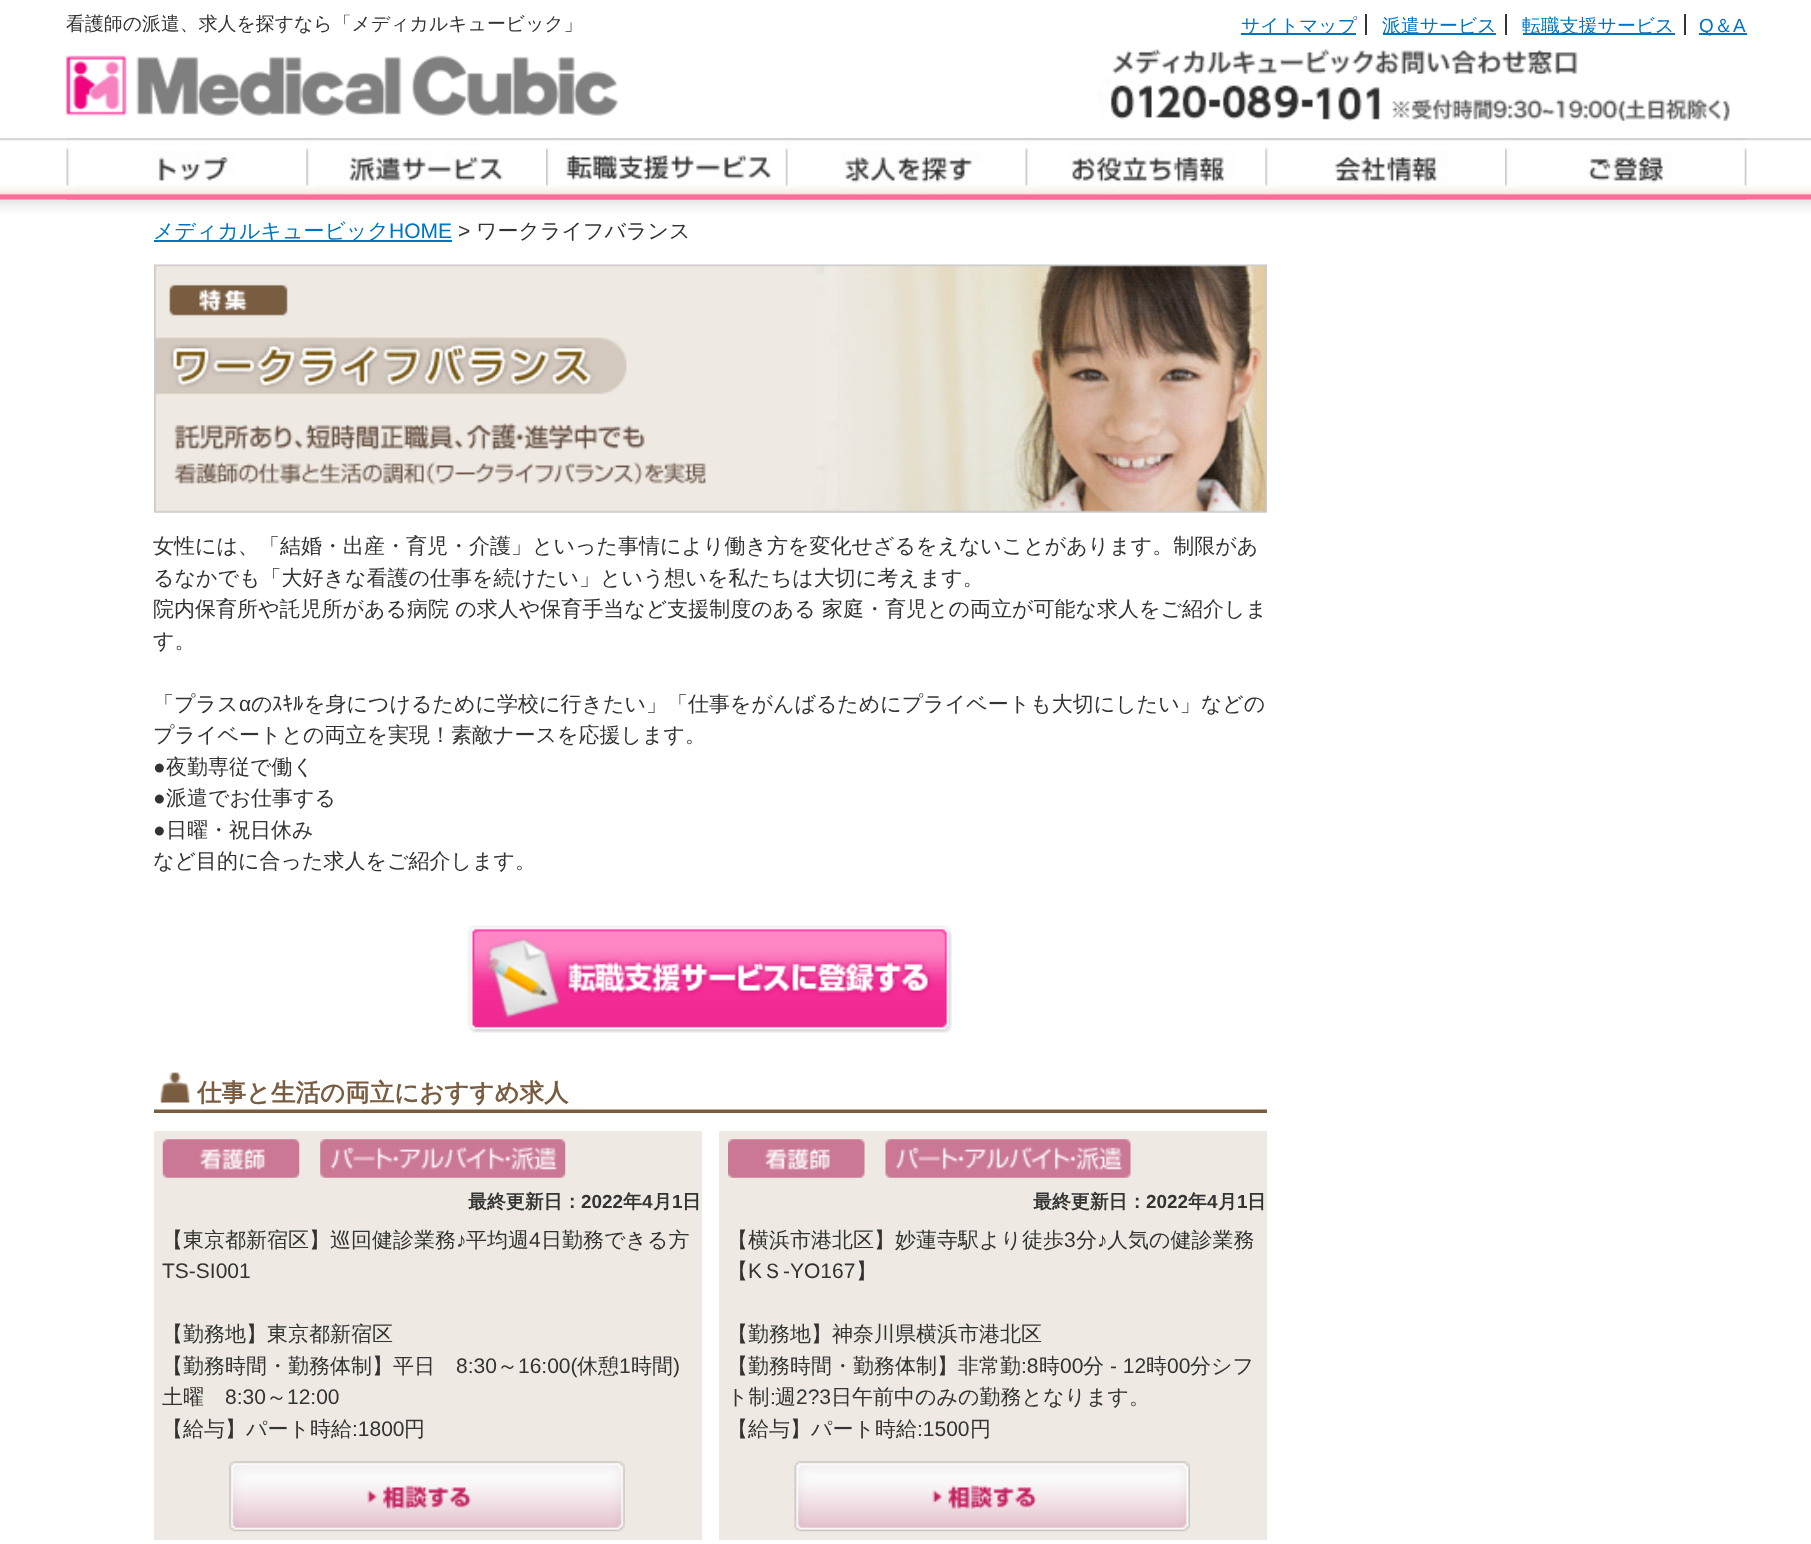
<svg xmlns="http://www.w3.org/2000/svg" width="1811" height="1544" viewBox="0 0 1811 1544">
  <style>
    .t1 { font: 500 18.9px WenQuanYi Zen Hei; fill: #333; }
    .t2 { font: 500 18.9px WenQuanYi Zen Hei; fill: #0074c1; }
    .t3 { font: 18.9px Liberation Sans; fill: #0074c1; }
    .t4 { font: 500 21px WenQuanYi Zen Hei; fill: #0074c1; }
    .t5 { font: 21px Liberation Sans; fill: #0074c1; }
    .t6 { font: 21px Liberation Sans; fill: #333; }
    .t7 { font: 500 21px WenQuanYi Zen Hei; fill: #333; }
    .t8 { font: 21px IPAPGothic; fill: #333; }
    .t9 { font: bold 24.5px WenQuanYi Zen Hei; fill: #7a5c40; }
    .t10 { font: bold 18.9px WenQuanYi Zen Hei; fill: #333; }
    .t11 { font: bold 18.9px Liberation Sans; fill: #333; }
  </style>
  <rect width="100%" height="100%" fill="#fff"/>
  <text x="66" y="30" class="t1">看護師の派遣、求人を探すなら「メディカルキュービック」</text>
  <image x="66" y="55" width="552" height="61" href="images/1.png"/>
  <rect x="1241" y="33" width="115" height="2" fill="#0074c1"/>
  <text x="1241" y="32" class="t2">サイトマップ</text>
  <rect x="1365" y="14" width="2" height="21" fill="#333"/>
  <rect x="1383" y="33" width="113" height="2" fill="#0074c1"/>
  <text x="1382" y="32" class="t2">派遣サービス</text>
  <rect x="1505" y="14" width="2" height="21" fill="#333"/>
  <rect x="1523" y="33" width="152" height="2" fill="#0074c1"/>
  <text x="1522" y="32" class="t2">転職支援サービス</text>
  <rect x="1684" y="14" width="2" height="21" fill="#333"/>
  <rect x="1699" y="33" width="48" height="2" fill="#0074c1"/>
  <text x="1699" y="32" class="t3">Q</text>
  <text x="1714" y="32" class="t2">＆</text>
  <text x="1733" y="32" class="t3">A</text>
  <image x="1098" y="49" width="633" height="72" href="images/2.png"/>
  <image x="0" y="138" width="1811" height="75" href="images/3.png"/>
  <image x="66" y="138" width="241" height="62" href="images/4.png"/>
  <image x="306" y="138" width="240" height="62" href="images/5.png"/>
  <image x="546" y="138" width="240" height="62" href="images/6.png"/>
  <image x="785" y="138" width="241" height="62" href="images/7.png"/>
  <image x="1025" y="138" width="241" height="62" href="images/8.png"/>
  <image x="1265" y="138" width="240" height="62" href="images/9.png"/>
  <image x="1505" y="138" width="242" height="62" href="images/10.png"/>
  <rect x="154" y="240" width="298" height="2" fill="#0074c1"/>
  <text x="153" y="238" class="t4">メディカルキュービック</text>
  <text x="389" y="238" class="t5">HOME</text>
  <text x="458" y="238" class="t6">&gt;</text>
  <text x="476" y="238" class="t7">ワークライフバランス</text>
  <image x="154" y="264" width="1113" height="249" href="images/11.png"/>
  <text x="153" y="553" class="t7">女性には、「結婚・出産・育児・介護」といった事情により働き方を変化せざるをえないことがあります。制限があ</text>
  <text x="153" y="585" class="t7">るなかでも「大好きな看護の仕事を続けたい」という想いを私たちは大切に考えます。</text>
  <text x="153" y="616" class="t7">院内保育所や託児所がある病院 の求人や保育手当など支援制度のある 家庭・育児との両立が可能な求人をご紹介しま</text>
  <text x="153" y="648" class="t7">す。</text>
  <text x="153" y="711" class="t7">「プラス</text>
  <text x="239" y="711" class="t6">α</text>
  <text x="251" y="711" class="t7">の</text>
  <text x="272" y="711" class="t8">ｽｷﾙ</text>
  <text x="304" y="711" class="t7">を身につけるために学校に行きたい」「仕事をがんばるためにプライベートも大切にしたい」などの</text>
  <text x="153" y="742" class="t7">プライベートとの両立を実現！素敵ナースを応援します。</text>
  <text x="153" y="774" class="t6">●</text>
  <text x="166" y="774" class="t7">夜勤専従で働く</text>
  <text x="153" y="805" class="t6">●</text>
  <text x="166" y="805" class="t7">派遣でお仕事する</text>
  <text x="153" y="837" class="t6">●</text>
  <text x="166" y="837" class="t7">日曜・祝日休み</text>
  <text x="153" y="868" class="t7">など目的に合った求人をご紹介します。</text>
  <image x="467" y="925" width="485" height="108" href="images/12.png"/>
  <image x="154" y="1072" width="1113" height="41" href="images/13.png"/>
  <text x="197" y="1101" class="t9">仕事と生活の両立におすすめ求人</text>
  <rect x="154" y="1131" width="548" height="409" fill="#eeeae3"/>
  <image x="162" y="1139" width="138" height="39" href="images/14.png"/>
  <image x="320" y="1139" width="246" height="39" href="images/15.png"/>
  <text x="468" y="1208" class="t10">最終更新日：</text>
  <text x="581" y="1208" class="t11">2022</text>
  <text x="623" y="1208" class="t10">年</text>
  <text x="642" y="1208" class="t11">4</text>
  <text x="653" y="1208" class="t10">月</text>
  <text x="672" y="1208" class="t11">1</text>
  <text x="682" y="1208" class="t10">日</text>
  <text x="162" y="1247" class="t7">【東京都新宿区】巡回健診業務</text>
  <text x="456" y="1247" class="t6">♪</text>
  <text x="466" y="1247" class="t7">平均週</text>
  <text x="529" y="1247" class="t6">4</text>
  <text x="541" y="1247" class="t7">日勤務できる方</text>
  <text x="162" y="1278" class="t6">TS-SI001</text>
  <text x="162" y="1341" class="t7">【勤務地】東京都新宿区</text>
  <text x="162" y="1373" class="t7">【勤務時間・勤務体制】平日</text>
  <text x="456" y="1373" class="t6">8:30</text>
  <text x="497" y="1373" class="t7">～</text>
  <text x="518" y="1373" class="t6">16:00(</text>
  <text x="577" y="1373" class="t7">休憩</text>
  <text x="619" y="1373" class="t6">1</text>
  <text x="631" y="1373" class="t7">時間</text>
  <text x="673" y="1373" class="t6">)</text>
  <text x="162" y="1404" class="t7">土曜</text>
  <text x="225" y="1404" class="t6">8:30</text>
  <text x="266" y="1404" class="t7">～</text>
  <text x="287" y="1404" class="t6">12:00</text>
  <text x="162" y="1436" class="t7">【給与】パート時給</text>
  <text x="352" y="1436" class="t6">:1800</text>
  <text x="404" y="1436" class="t7">円</text>
  <image x="229" y="1461" width="396" height="71" href="images/16.png"/>
  <rect x="719" y="1131" width="548" height="409" fill="#eeeae3"/>
  <image x="728" y="1139" width="137" height="39" href="images/17.png"/>
  <image x="885" y="1139" width="246" height="39" href="images/18.png"/>
  <text x="1033" y="1208" class="t10">最終更新日：</text>
  <text x="1146" y="1208" class="t11">2022</text>
  <text x="1188" y="1208" class="t10">年</text>
  <text x="1207" y="1208" class="t11">4</text>
  <text x="1218" y="1208" class="t10">月</text>
  <text x="1237" y="1208" class="t11">1</text>
  <text x="1247" y="1208" class="t10">日</text>
  <text x="727" y="1247" class="t7">【横浜市港北区】妙蓮寺駅より徒歩</text>
  <text x="1064" y="1247" class="t6">3</text>
  <text x="1076" y="1247" class="t7">分</text>
  <text x="1097" y="1247" class="t6">♪</text>
  <text x="1107" y="1247" class="t7">人気の健診業務</text>
  <text x="727" y="1278" class="t7">【</text>
  <text x="748" y="1278" class="t6">K</text>
  <text x="762" y="1278" class="t7">Ｓ</text>
  <text x="783" y="1278" class="t6">-YO167</text>
  <text x="856" y="1278" class="t7">】</text>
  <text x="727" y="1341" class="t7">【勤務地】神奈川県横浜市港北区</text>
  <text x="727" y="1373" class="t7">【勤務時間・勤務体制】非常勤</text>
  <text x="1021" y="1373" class="t6">:8</text>
  <text x="1039" y="1373" class="t7">時</text>
  <text x="1060" y="1373" class="t6">00</text>
  <text x="1083" y="1373" class="t7">分</text>
  <text x="1110" y="1373" class="t6">- 12</text>
  <text x="1146" y="1373" class="t7">時</text>
  <text x="1167" y="1373" class="t6">00</text>
  <text x="1190" y="1373" class="t7">分シフ</text>
  <text x="727" y="1404" class="t7">ト制</text>
  <text x="770" y="1404" class="t6">:</text>
  <text x="775" y="1404" class="t7">週</text>
  <text x="796" y="1404" class="t6">2?3</text>
  <text x="831" y="1404" class="t7">日午前中のみの勤務となります。</text>
  <text x="727" y="1436" class="t7">【給与】パート時給</text>
  <text x="917" y="1436" class="t6">:1500</text>
  <text x="970" y="1436" class="t7">円</text>
  <image x="794" y="1461" width="396" height="71" href="images/19.png"/>
</svg>
